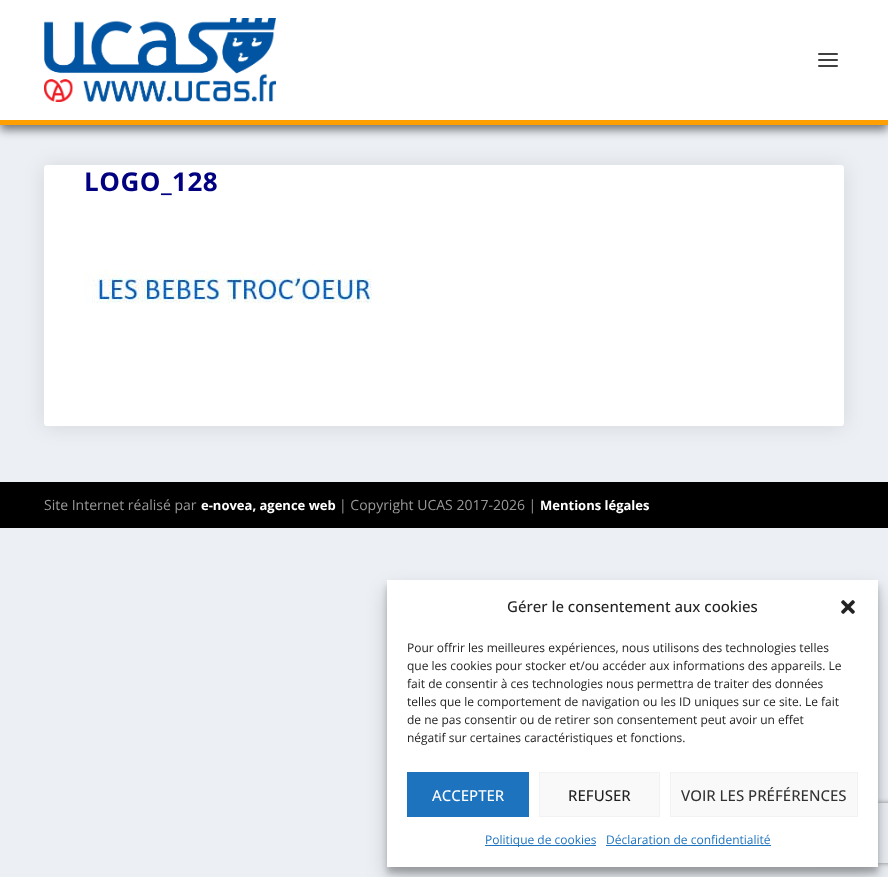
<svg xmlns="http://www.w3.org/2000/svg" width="888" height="877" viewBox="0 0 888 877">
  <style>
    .t1 { font: bold 26px Open Sans; letter-spacing: 0.5px; fill: #000080; }
    .t2 { font: 14px Open Sans; fill: #999; }
    .t3 { font: bold 13px Open Sans; fill: #fff; }
    .t4 { font: 500 15px Open Sans; fill: #222; }
    .t5 { font: 12px Open Sans; fill: #222; }
    .t6 { font: 500 15px Open Sans; fill: #fff; }
    .t7 { font: 500 15px Open Sans; fill: #333; }
    .t8 { font: 12px Open Sans; fill: #1e73be; }
  </style>
  <defs>
    <clipPath id="clip1"><path d="M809 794H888V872H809ZM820 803H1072C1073 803 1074 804 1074 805V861C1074 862 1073 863 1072 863H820C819 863 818 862 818 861V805C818 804 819 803 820 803Z" clip-rule="evenodd"/></clipPath>
  </defs>
  <rect width="100%" height="100%" fill="#ecf0f5"/>
  <rect x="0" y="5" width="888" height="125" fill="#00000080" filter="blur(5px)"/>
  <rect x="0" y="0" width="888" height="120" fill="#fff"/>
  <rect x="0" y="120" width="888" height="5" fill="#ffa000"/>
  <image x="44" y="18" width="232" height="84" href="images/1.png"/>
  <rect x="818" y="53" width="20" height="2" rx="1" fill="#404040"/>
  <rect x="818" y="59" width="20" height="2" rx="1" fill="#404040"/>
  <rect x="818" y="65" width="20" height="2" rx="1" fill="#404040"/>
  <rect x="44" y="166" width="800" height="261" rx="3" fill="#0000001a" filter="blur(10px)"/>
  <rect x="44" y="165" width="800" height="261" rx="3" fill="#fff"/>
  <text x="84" y="191" class="t1">LOGO_128</text>
  <image x="84" y="270" width="288" height="34" href="images/2.png"/>
  <rect x="0" y="482" width="888" height="46" fill="#000"/>
  <text x="44" y="510" class="t2">Site Internet réalisé par</text>
  <text x="201" y="510" class="t3">e-novea, agence web</text>
  <text x="339" y="510" class="t2">| Copyright UCAS 2017-2026 |</text>
  <text x="540" y="510" class="t3">Mentions légales</text>
  <rect x="387" y="586" width="491" height="287" fill="#0000003b" filter="blur(3px)"/>
  <rect x="387" y="590" width="491" height="287" fill="#00000030" filter="blur(10px)"/>
  <g clip-path="url(#clip1)">
    <rect x="818" y="803" width="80" height="60" rx="2" fill="#808080" filter="blur(2.5px)"/>
  </g>
  <rect x="387" y="580" width="491" height="287" fill="#fff"/>
  <text x="507" y="612" class="t4">Gérer le consentement aux cookies</text>
  <image x="841" y="600" width="14" height="14" href="images/3.png"/>
  <text x="407" y="652" class="t5">Pour offrir les meilleures expériences, nous utilisons des technologies telles</text>
  <text x="407" y="670" class="t5">que les cookies pour stocker et/ou accéder aux informations des appareils. Le</text>
  <text x="407" y="688" class="t5">fait de consentir à ces technologies nous permettra de traiter des données</text>
  <text x="407" y="706" class="t5">telles que le comportement de navigation ou les ID uniques sur ce site. Le fait</text>
  <text x="407" y="724" class="t5">de ne pas consentir ou de retirer son consentement peut avoir un effet</text>
  <text x="407" y="742" class="t5">négatif sur certaines caractéristiques et fonctions.</text>
  <rect x="407" y="772" width="122" height="45" fill="#1e73be"/>
  <text x="432" y="801" class="t6">ACCEPTER</text>
  <rect x="539.5" y="772.5" width="120" height="44" fill="#f9f9f9" stroke="#f2f2f2"/>
  <text x="568" y="801" class="t4">REFUSER</text>
  <rect x="670.5" y="772.5" width="187" height="44" fill="#f9f9f9" stroke="#f2f2f2"/>
  <text x="681" y="801" class="t7">VOIR LES PRÉFÉRENCES</text>
  <rect x="485" y="845" width="111" height="1" fill="#1e73be"/>
  <text x="485" y="844" class="t8">Politique de cookies</text>
  <text x="606" y="844" class="t8">Déclaration de confidentialité</text>
  <rect x="606" y="845" width="165" height="1" fill="#1e73be"/>
</svg>
